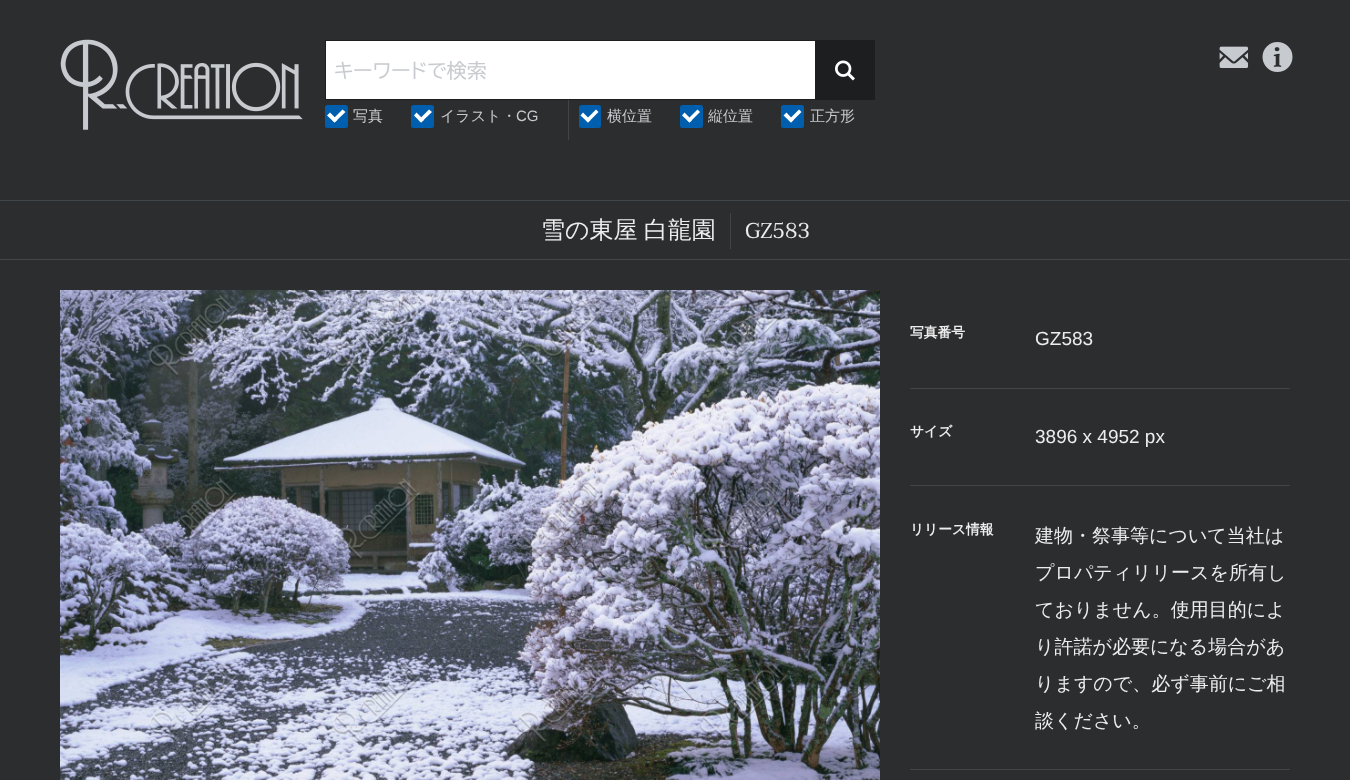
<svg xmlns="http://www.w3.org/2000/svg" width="1350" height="780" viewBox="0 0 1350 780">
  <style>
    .t1 { font: 20px BIZ UDPGothic; fill: #c7cace; }
    .t2 { font: 500 15px WenQuanYi Zen Hei; fill: #c7cace; }
    .t3 { font: 15px Liberation Sans; fill: #c7cace; }
    .t4 { font: 500 24px WenQuanYi Zen Hei; fill: #ededed; }
    .t5 { font: 21.5px Taviraj; fill: #ededed; }
    .t6 { font: bold 13.75px WenQuanYi Zen Hei; fill: #ededed; }
    .t7 { font: 19px Liberation Sans; fill: #ededed; }
    .t8 { font: 500 19px WenQuanYi Zen Hei; fill: #ededed; }
  </style>
  <rect width="100%" height="100%" fill="#2c2d2f"/>
  <image x="60" y="39" width="243" height="91" href="images/1.png"/>
  <image x="1219" y="46" width="30" height="22" href="images/2.png"/>
  <image x="1262" y="42" width="31" height="30" href="images/3.png"/>
  <rect x="326" y="41" width="489" height="58" fill="#fff"/>
  <rect x="325.5" y="40.5" width="549" height="59" fill="none" stroke="#1d1e1f"/>
  <text x="334" y="78" class="t1">キーワードで検索</text>
  <rect x="815" y="41" width="59" height="58" fill="#1d1e1f"/>
  <image x="835" y="60" width="20" height="21" href="images/4.png"/>
  <rect x="326.5" y="106.5" width="20" height="20" rx="1" fill="#005eae" stroke="#005eae" stroke-width="3"/>
  <text x="353" y="121" class="t2">写真</text>
  <path d="M332 120L342.5 109.5L345.5 112L334.5 122.5Z" fill="#fff"/>
  <path d="M327 115.5L330 112.5L337.5 120L334.5 122.5Z" fill="#fff"/>
  <rect x="412.5" y="106.5" width="20" height="20" rx="1" fill="#005eae" stroke="#005eae" stroke-width="3"/>
  <path d="M418.5 120L429 109.5L432 112L421 122.5Z" fill="#fff"/>
  <path d="M414 115.5L416.5 112.5L424 120L421 122.5Z" fill="#fff"/>
  <text x="440" y="121" class="t2">イラスト・</text>
  <text x="516" y="121" class="t3">CG</text>
  <rect x="568" y="100" width="1" height="40" fill="#40454a"/>
  <rect x="580.5" y="106.5" width="19" height="20" rx="1" fill="#005eae" stroke="#005eae" stroke-width="3"/>
  <text x="607" y="121" class="t2">横位置</text>
  <path d="M585.5 120L596 109.5L598.5 112L588 122.5Z" fill="#fff"/>
  <path d="M580.5 115.5L583 112.5L590.5 120L588 122.5Z" fill="#fff"/>
  <rect x="681.5" y="106.5" width="20" height="20" rx="1" fill="#005eae" stroke="#005eae" stroke-width="3"/>
  <text x="708" y="121" class="t2">縦位置</text>
  <path d="M687 120L697.5 109.5L700 112L689.5 122.5Z" fill="#fff"/>
  <path d="M682 115.5L684.5 112.5L692 120L689.5 122.5Z" fill="#fff"/>
  <rect x="782.5" y="106.5" width="20" height="20" rx="1" fill="#005eae" stroke="#005eae" stroke-width="3"/>
  <text x="810" y="121" class="t2">正方形</text>
  <path d="M788.5 120L799 109.5L801.5 112L791 122.5Z" fill="#fff"/>
  <path d="M783.5 115.5L786.5 112.5L793.5 120L791 122.5Z" fill="#fff"/>
  <rect x="0" y="200" width="1350" height="1" fill="#40454a"/>
  <rect x="0" y="259" width="1350" height="1" fill="#40454a"/>
  <text x="541" y="238" word-spacing="-1" class="t4">雪の東屋 白龍園</text>
  <text x="745" y="238" class="t5">GZ583</text>
  <rect x="730" y="213" width="1" height="36" fill="#40454a"/>
  <image x="60" y="290" width="820" height="490" href="images/5.png"/>
  <rect x="910" y="388" width="380" height="1" fill="#40454a"/>
  <text x="910" y="337" class="t6">写真番号</text>
  <text x="1035" y="345" class="t7">GZ583</text>
  <rect x="910" y="485" width="380" height="1" fill="#40454a"/>
  <text x="910" y="436" class="t6">サイズ</text>
  <text x="1035" y="443" class="t7">3896 x 4952 px</text>
  <rect x="910" y="769" width="380" height="1" fill="#40454a"/>
  <text x="910" y="534" class="t6">リリース情報</text>
  <text x="1035" y="542" class="t8">建物・祭事等について当社は</text>
  <text x="1035" y="579" class="t8">プロパティリリースを所有し</text>
  <text x="1035" y="616" class="t8">ておりません。使用目的によ</text>
  <text x="1035" y="653" class="t8">り許諾が必要になる場合があ</text>
  <text x="1035" y="690" class="t8">りますので、必ず事前にご相</text>
  <text x="1035" y="727" class="t8">談ください。</text>
</svg>
